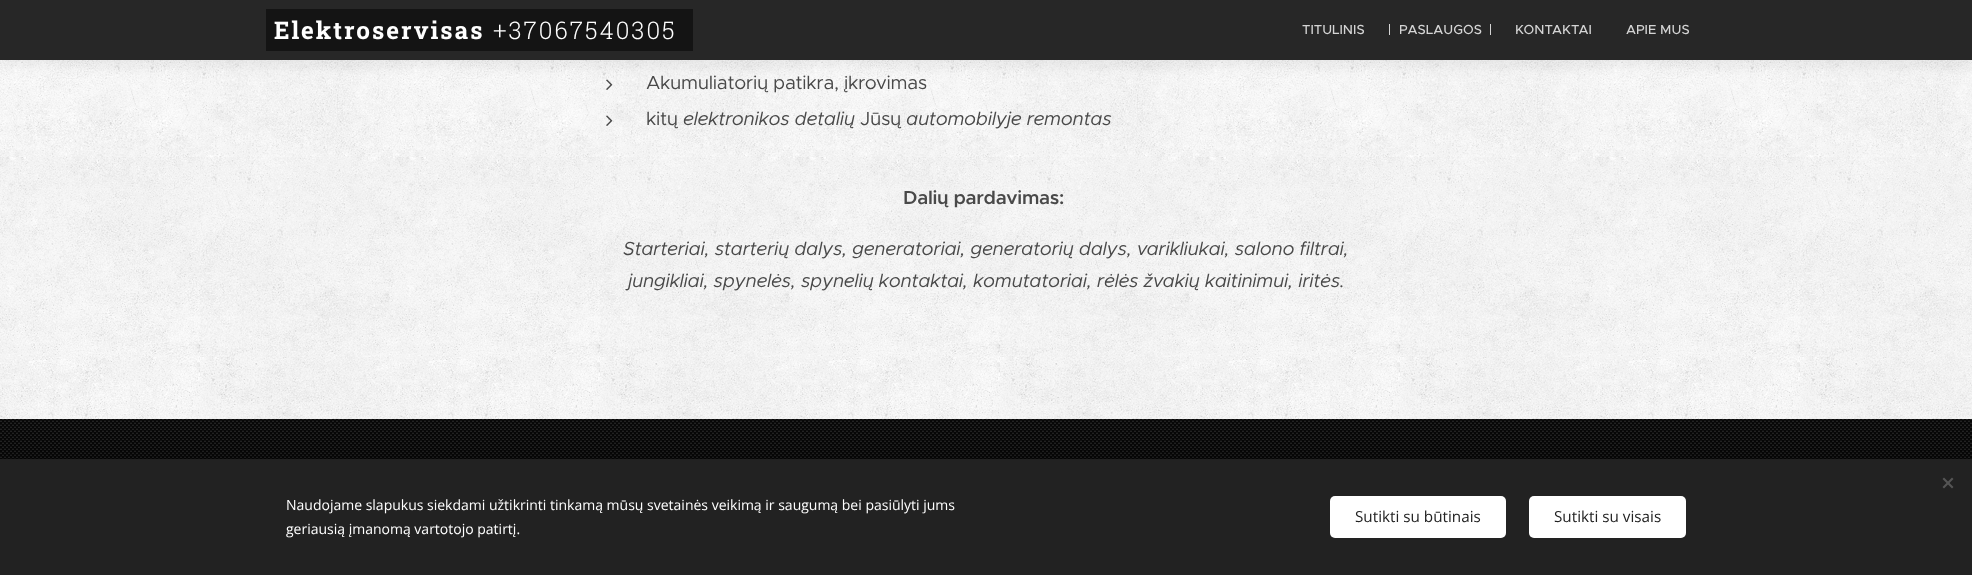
<svg xmlns="http://www.w3.org/2000/svg" width="1972" height="575" viewBox="0 0 1972 575">
  <style>
    .t1 { font: bold 24.25px Roboto Slab; letter-spacing: 2px; fill: #fff; }
    .t2 { font: 300 24.25px Roboto Slab; letter-spacing: 2px; fill: #fff; }
    .t3 { font: 500 13.25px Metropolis; fill: #d4d4d4; }
    .t4 { font: 19px Metropolis; letter-spacing: -0.28px; fill: #494949; }
    .t5 { font: italic 19px Metropolis; letter-spacing: -0.28px; fill: #494949; }
    .t6 { font: 600 19px Metropolis; letter-spacing: -0.28px; fill: #494949; }
    .t7 { font: 14px Open Sans; fill: #fff; }
    .t8 { font: 15.25px Open Sans; fill: #222; }
  </style>
  <rect width="100%" height="100%" fill="#fff"/>
  <image x="0" y="60" width="1972" height="359" href="images/1.png"/>
  <image x="606" y="79" width="7" height="11" href="images/2.png"/>
  <rect x="0" y="5" width="1972" height="60" fill="#00000012" filter="blur(7.5px)"/>
  <rect x="0" y="0" width="1972" height="60" fill="#272727"/>
  <rect x="266" y="9" width="427" height="42" fill="#141414"/>
  <text x="274" y="39" class="t1">Elektroservisas</text>
  <text x="493" y="39" class="t2">+37067540305</text>
  <text x="1302" y="34" class="t3">TITULINIS</text>
  <rect x="1389" y="24" width="1" height="11" fill="#d4d4d4"/>
  <text x="1399" y="34" class="t3">PASLAUGOS</text>
  <rect x="1490" y="24" width="1" height="11" fill="#d4d4d4"/>
  <text x="1515" y="34" class="t3">KONTAKTAI</text>
  <text x="1626" y="34" class="t3">APIE MUS</text>
  <text x="646" y="89" class="t4">Akumuliatorių patikra, įkrovimas</text>
  <image x="606" y="115" width="7" height="11" href="images/3.png"/>
  <text x="646" y="125" class="t4">kitų</text>
  <text x="683" y="125" class="t5">elektronikos detalių</text>
  <text x="860" y="125" class="t4">Jūsų</text>
  <text x="906" y="125" class="t5">automobilyje remontas</text>
  <text x="903" y="204" class="t6">Dalių pardavimas:</text>
  <text x="623" y="255" class="t5">Starteriai, starterių dalys, generatoriai, generatorių dalys, varikliukai, salono filtrai,</text>
  <text x="628" y="287" class="t5">jungikliai, spynelės, spynelių kontaktai, komutatoriai, rėlės žvakių kaitinimui, iritės</text>
  <text x="1339" y="287" class="t4">.</text>
  <image x="0" y="419" width="1972" height="40" href="images/4.png"/>
  <rect x="0" y="459" width="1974" height="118" fill="#00000054" filter="blur(12.5px)"/>
  <rect x="0" y="459" width="1972" height="116" fill="#222"/>
  <path d="M1942.5 487L1952 477.5L1953.5 479L1944 488.5Z" fill="#555"/>
  <path d="M1944 477.5L1953.5 487L1952 488.5L1942.5 479Z" fill="#555"/>
  <text x="286" y="510" class="t7">Naudojame slapukus siekdami užtikrinti tinkamą mūsų svetainės veikimą ir saugumą bei pasiūlyti jums</text>
  <text x="286" y="534" class="t7">geriausią įmanomą vartotojo patirtį.</text>
  <rect x="1330" y="496" width="176" height="42" rx="5" fill="#fff"/>
  <text x="1355" y="522" class="t8">Sutikti su būtinais</text>
  <rect x="1529" y="496" width="157" height="42" rx="5" fill="#fff"/>
  <text x="1554" y="522" class="t8">Sutikti su visais</text>
</svg>
